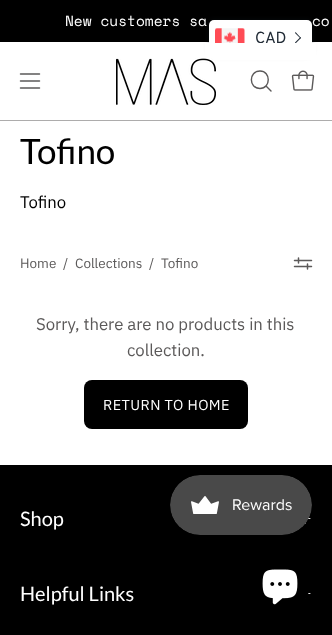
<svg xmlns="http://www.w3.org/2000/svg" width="332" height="635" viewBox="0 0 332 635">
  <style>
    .t1 { font: 14.5px Space Mono; fill: #fff; }
    .t2 { font: 16px Overpass; fill: #212b36; }
    .t3 { font: 35px Lato; fill: #000; }
    .t4 { font: 16.75px IBM Plex Sans; fill: #000; }
    .t5 { font: 13.5px IBM Plex Sans; fill: #5b5959; }
    .t6 { font: 16.75px IBM Plex Sans; fill: #5b5959; }
    .t7 { font: 14.5px IBM Plex Sans; letter-spacing: 0.4px; fill: #fff; }
    .t8 { font: 20px Lato; fill: #fff; }
  </style>
  <rect width="100%" height="100%" fill="#fff"/>
  <rect x="0" y="0" width="332" height="42" fill="#000"/>
  <text x="65" y="26" class="t1">New customers sa</text>
  <text x="312" y="26" class="t1">co</text>
  <rect x="209" y="20" width="103" height="36" rx="5" fill="#212b3640" filter="blur(2.5px)"/>
  <rect x="209" y="20" width="103" height="36" rx="5" fill="#fff"/>
  <image x="215" y="28" width="30" height="15" href="images/1.png"/>
  <text x="255" y="43" class="t2">CAD</text>
  <path d="M295 33L295.5 32L301 38L300.5 38.5Z" fill="#212b36"/>
  <path d="M295 42.5L300.5 37L301 38L295.5 43.5Z" fill="#212b36"/>
  <rect x="205" y="43" width="111" height="17" fill="#fff"/>
  <path d="M20.5 81H39.5M20.5 74H39.5M20.5 88H39.5" fill="none" stroke="#5b5959" stroke-width="1.5" stroke-linecap="round" stroke-linejoin="round"/>
  <image x="116" y="58" width="100" height="47" href="images/2.png"/>
  <path d="M260 88.5C271 88.5 271 71 260 71C248.5 71 248.5 88.5 260 88.5ZM266 86L271 91" fill="none" stroke="#5b5959" stroke-width="1.4" stroke-linecap="round" stroke-linejoin="round"/>
  <image x="291" y="70" width="24" height="21" href="images/3.png"/>
  <rect x="0" y="120" width="332" height="1" fill="#adacac"/>
  <text x="20" y="164" class="t3">Tofino</text>
  <text x="20" y="208" class="t4">Tofino</text>
  <text x="20" y="268" class="t5">Home</text>
  <text x="63" y="268" class="t5">/</text>
  <text x="75" y="268" class="t5">Collections</text>
  <text x="149" y="268" class="t5">/</text>
  <text x="161" y="268" class="t5">Tofino</text>
  <image x="293" y="257" width="20" height="13" href="images/4.png"/>
  <text x="36" y="330" class="t6">Sorry, there are no products in this</text>
  <text x="127" y="356" class="t6">collection.</text>
  <rect x="84" y="380" width="164" height="49" rx="8" fill="#000"/>
  <text x="103" y="410" class="t7">RETURN TO HOME</text>
  <rect x="0" y="465" width="332" height="170" fill="#000"/>
  <path d="M300 518.5H310M305 513.5V523.5" fill="none" stroke="#fff" stroke-width="0.9" stroke-linecap="round" stroke-linejoin="round"/>
  <image x="170" y="475" width="142" height="60" href="images/5.png"/>
  <text x="20" y="526" class="t8">Shop</text>
  <text x="20" y="601" class="t8">Helpful Links</text>
  <path d="M300 593.5H310M305 588.5V598.5" fill="none" stroke="#fff" stroke-width="0.9" stroke-linecap="round" stroke-linejoin="round"/>
  <circle cx="280" cy="584" r="30" fill="#000"/>
  <image x="262" y="569" width="36" height="36" href="images/6.png"/>
</svg>
